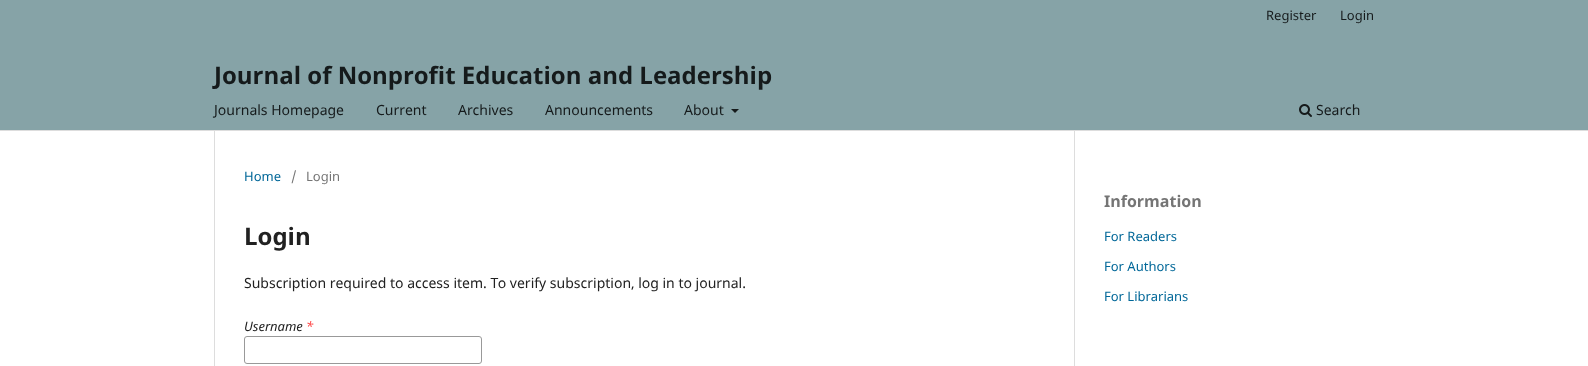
<svg xmlns="http://www.w3.org/2000/svg" width="1588" height="366" viewBox="0 0 1588 366">
  <style>
    .t1 { font: 13px Noto Sans; fill: #151a1b; }
    .t2 { font: 14px Noto Sans; fill: #151a1b; }
    .t3 { font: bold 24px Noto Sans; fill: #151a1b; }
    .t4 { font: 13px Noto Sans; fill: #006798; }
    .t5 { font: 13px Noto Sans; fill: #757575; }
    .t6 { font: bold 24px Noto Sans; fill: #212121; }
    .t7 { font: 14px Noto Sans; fill: #212121; }
    .t8 { font: italic 13px Noto Sans; fill: #212121; }
    .t9 { font: italic 13px Noto Sans; fill: #ff4040; }
    .t10 { font: bold 16px Noto Sans; fill: #757575; }
  </style>
  <rect width="100%" height="100%" fill="#fff"/>
  <rect x="0" y="0" width="1588" height="130" fill="#86a3a7"/>
  <rect x="0" y="130" width="1588" height="1" fill="#ddd"/>
  <text x="1266" y="20" class="t1">Register</text>
  <text x="1340" y="20" class="t1">Login</text>
  <text x="214" y="115" class="t2">Journals Homepage</text>
  <text x="376" y="115" class="t2">Current</text>
  <text x="458" y="115" class="t2">Archives</text>
  <text x="545" y="115" class="t2">Announcements</text>
  <text x="684" y="115" class="t2">About</text>
  <path d="M731 109H739L735 113Z" fill="#151a1b"/>
  <image x="1299" y="104" width="13" height="13" href="images/1.png"/>
  <text x="1316" y="115" class="t2">Search</text>
  <text x="214" y="84" class="t3">Journal of Nonprofit Education and Leadership</text>
  <rect x="214" y="131" width="1" height="235" fill="#ddd"/>
  <text x="244" y="181" class="t4">Home</text>
  <text x="291" y="181" class="t5">/</text>
  <text x="306" y="181" class="t5">Login</text>
  <text x="244" y="245" class="t6">Login</text>
  <text x="244" y="288" class="t7">Subscription required to access item. To verify subscription, log in to journal.</text>
  <text x="244" y="331" class="t8">Username</text>
  <text x="306" y="331" class="t9">*</text>
  <rect x="244.5" y="336.5" width="237" height="27" rx="2.5" fill="none" stroke="#999"/>
  <rect x="1074" y="131" width="1" height="235" fill="#ddd"/>
  <text x="1104" y="207" class="t10">Information</text>
  <text x="1104" y="241" class="t4">For Readers</text>
  <text x="1104" y="271" class="t4">For Authors</text>
  <text x="1104" y="301" class="t4">For Librarians</text>
</svg>
